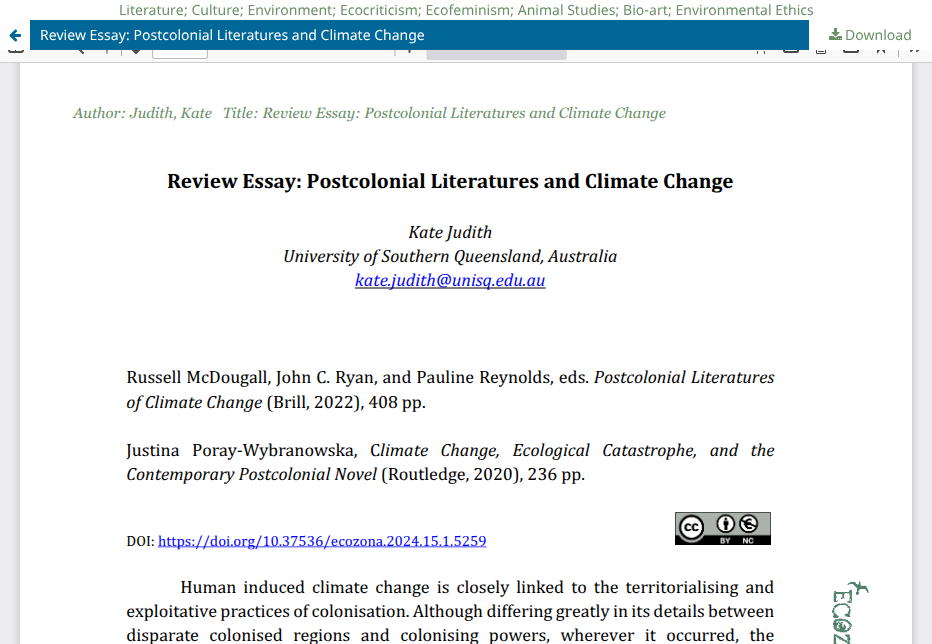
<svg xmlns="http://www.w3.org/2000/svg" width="932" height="644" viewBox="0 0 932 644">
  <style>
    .t1 { font: 14px Noto Sans; fill: #6a8f69; }
    .t2 { font: 14px Noto Sans; fill: #fff; }
  </style>
  <rect width="100%" height="100%" fill="#fff"/>
  <text x="119" y="15" class="t1">Literature; Culture; Environment; Ecocriticism; Ecofeminism; Animal Studies; Bio-art; Environmental Ethics</text>
  <rect x="30" y="20" width="779" height="30" fill="#006798"/>
  <image x="9" y="29" width="12" height="13" href="images/1.png"/>
  <text x="40" y="40" class="t2">Review Essay: Postcolonial Literatures and Climate Change</text>
  <image x="829" y="28" width="13" height="12" href="images/2.png"/>
  <text x="845" y="40" class="t1">Download</text>
  <image x="0" y="50" width="932" height="594" href="images/3.png"/>
</svg>
